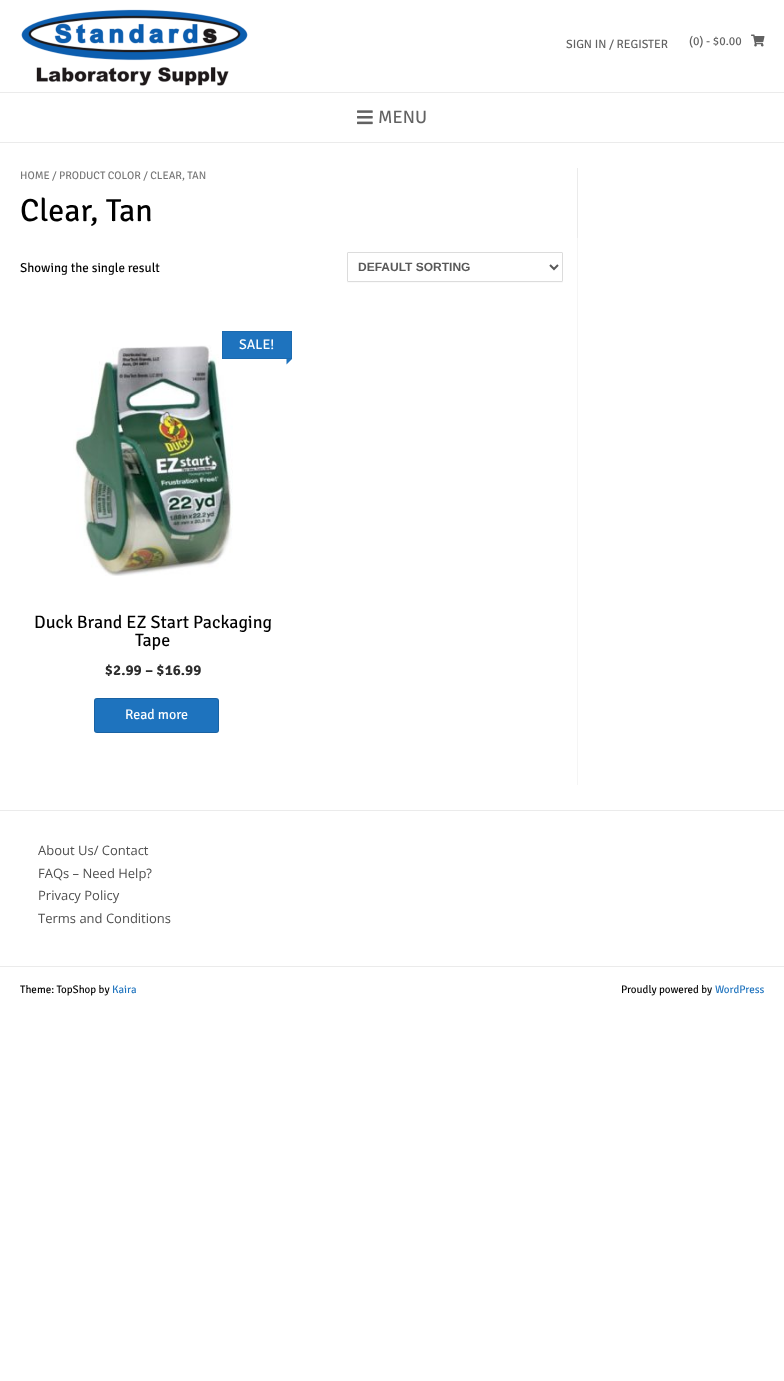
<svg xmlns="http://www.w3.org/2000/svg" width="784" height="1381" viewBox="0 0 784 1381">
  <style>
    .t1 { font: 12px Signika Negative; fill: #626262; }
    .t2 { font: 18px Signika Negative; fill: #626262; }
    .t3 { font: 11px Signika Negative; fill: #767676; }
    .t4 { font: 32px Signika Negative; fill: #000; }
    .t5 { font: 13px Signika Negative; fill: #000; }
    .t6 { font: bold 12px Liberation Sans; fill: #595959; }
    .t7 { font: 14px Signika Negative; fill: #fff; }
    .t8 { font: 18px Signika Negative; fill: #000; }
    .t9 { font: bold 15px Signika Negative; fill: #2d2d2d; }
    .t10 { font: 13px Open Sans; fill: #4f4f4f; }
    .t11 { font: 11px Signika Negative; fill: #000; }
    .t12 { font: 11px Signika Negative; fill: #1e73be; }
  </style>
  <rect width="100%" height="100%" fill="#fff"/>
  <rect x="0" y="142" width="784" height="1" fill="#ebebeb"/>
  <image x="21" y="9" width="227" height="77" href="images/1.png"/>
  <text x="566" y="48" class="t1">SIGN IN / REGISTER</text>
  <text x="689" y="45" class="t1">(0) - $0.00</text>
  <image x="751" y="34" width="14" height="13" href="images/2.png"/>
  <rect x="0" y="92" width="784" height="1" fill="#ebebeb"/>
  <image x="357" y="110" width="16" height="15" href="images/3.png"/>
  <text x="378" y="123" class="t2">MENU</text>
  <rect x="577" y="238" width="1" height="547" fill="#f5f5f5"/>
  <text x="20" y="179" class="t3">HOME</text>
  <text x="52" y="179" class="t3">/ PRODUCT COLOR / CLEAR, TAN</text>
  <text x="20" y="221" class="t4">Clear, Tan</text>
  <text x="20" y="272" class="t5">Showing the single result</text>
  <path d="M347 281V283H348H562C563 283 563 282 563 281L562 282H348Z" fill="#fafafa"/>
  <rect x="347.5" y="252.5" width="215" height="29" rx="0.5" fill="none" stroke="#dcdcdc"/>
  <path d="M550 265L554 269L558 265" fill="none" stroke="#595959" stroke-width="2"/>
  <text x="358" y="271" class="t6">DEFAULT SORTING</text>
  <image x="73" y="345" width="160" height="231" href="images/4.png"/>
  <rect x="222.5" y="331.5" width="69" height="27" fill="#1e73be" stroke="#1c6aaf"/>
  <text x="239" y="349" class="t7">SALE!</text>
  <path d="M292 359L286.5 364.5V359Z" fill="#1e73be"/>
  <text x="34" y="628" class="t8">Duck Brand EZ Start Packaging</text>
  <text x="135" y="646" class="t8">Tape</text>
  <text x="105" y="675" class="t9">$2.99 – $16.99</text>
  <rect x="94" y="698" width="125" height="35" rx="3" fill="#1e73be"/>
  <rect x="94.5" y="698.5" width="124" height="34" rx="2.5" fill="none" stroke="#00000024"/>
  <text x="125" y="719" class="t7">Read more</text>
  <rect x="577" y="168" width="1" height="70" fill="#ebebeb"/>
  <rect x="0" y="810" width="784" height="1" fill="#ebebeb"/>
  <text x="38" y="855" class="t10">About Us/ Contact</text>
  <text x="38" y="878" class="t10">FAQs – Need Help?</text>
  <text x="38" y="900" class="t10">Privacy Policy</text>
  <text x="38" y="923" class="t10">Terms and Conditions</text>
  <rect x="0" y="966" width="784" height="1" fill="#ebebeb"/>
  <text x="20" y="993" class="t11">Theme: TopShop by</text>
  <text x="112" y="993" class="t12">Kaira</text>
  <text x="621" y="993" class="t11">Proudly powered by</text>
  <text x="715" y="993" class="t12">WordPress</text>
</svg>
